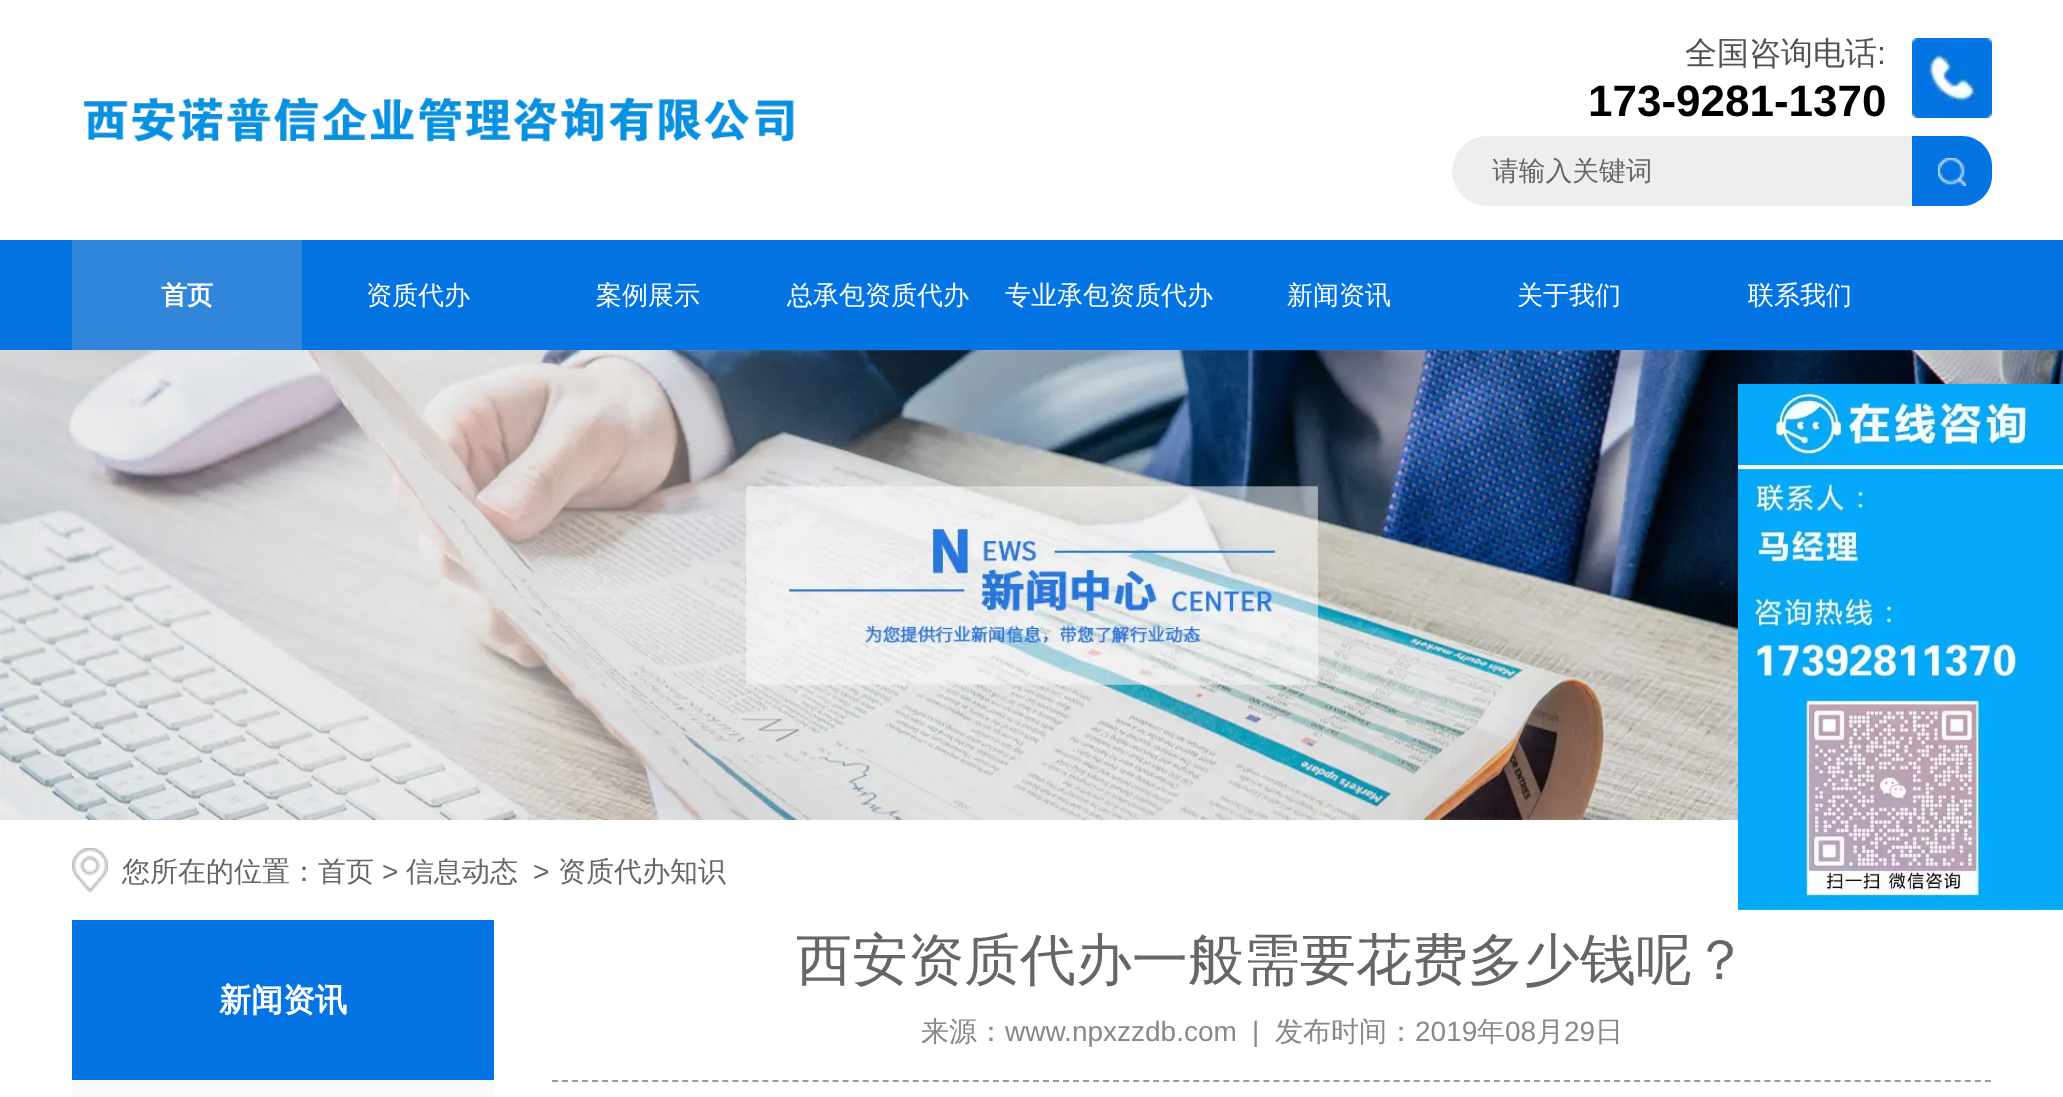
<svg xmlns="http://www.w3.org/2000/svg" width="2063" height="1097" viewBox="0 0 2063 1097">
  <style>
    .t1 { font: 500 32px WenQuanYi Zen Hei; fill: #525252; }
    .t2 { font: 32px Liberation Sans; fill: #525252; }
    .t3 { font: bold 44px Liberation Sans; fill: #000; }
    .t4 { font: 500 26.75px WenQuanYi Zen Hei; fill: #666; }
    .t5 { font: bold 26px WenQuanYi Zen Hei; fill: #fff; }
    .t6 { font: 500 26px WenQuanYi Zen Hei; fill: #fff; }
    .t7 { font: 500 28px WenQuanYi Zen Hei; fill: #666; }
    .t8 { font: 28px Liberation Sans; fill: #666; }
    .t9 { font: bold 32px WenQuanYi Zen Hei; fill: #fff; }
    .t10 { font: 500 56px WenQuanYi Zen Hei; fill: #666; }
    .t11 { font: 500 28px WenQuanYi Zen Hei; fill: #888; }
    .t12 { font: 28px Liberation Sans; fill: #888; }
  </style>
  <rect width="100%" height="100%" fill="#fff"/>
  <image x="84" y="97" width="710" height="45" href="images/1.png"/>
  <text x="1685" y="64" class="t1">全国咨询电话</text>
  <text x="1877" y="64" class="t2">:</text>
  <text x="1588" y="116" class="t3">173-9281-1370</text>
  <image x="1912" y="38" width="80" height="80" href="images/2.png"/>
  <rect x="1452" y="136" width="540" height="70" rx="35" fill="#eee"/>
  <text x="1492" y="180" class="t4">请输入关键词</text>
  <path d="M1912 136H1962C1978.5 136 1992 149.5 1992 166V176C1992 192.5 1978.5 206 1962 206H1912Z" fill="#0374e2"/>
  <image x="1938" y="158" width="28" height="28" href="images/3.png"/>
  <rect x="0" y="240" width="2063" height="110" fill="#0374e2"/>
  <rect x="72" y="240" width="230" height="110" fill="#3186d9"/>
  <text x="161" y="304" class="t5">首页</text>
  <text x="366" y="304" class="t6">资质代办</text>
  <text x="596" y="304" class="t6">案例展示</text>
  <text x="787" y="304" class="t6">总承包资质代办</text>
  <text x="1005" y="304" class="t6">专业承包资质代办</text>
  <text x="1287" y="304" class="t6">新闻资讯</text>
  <text x="1517" y="304" class="t6">关于我们</text>
  <text x="1748" y="304" class="t6">联系我们</text>
  <image x="0" y="350" width="2063" height="470" href="images/4.png"/>
  <image x="1738" y="384" width="325" height="526" href="images/5.png"/>
  <image x="72" y="848" width="36" height="44" href="images/6.png"/>
  <text x="122" y="881" class="t7">您所在的位置：首页</text>
  <text x="382" y="881" class="t8">&gt;</text>
  <text x="406" y="881" class="t7">信息动态</text>
  <text x="533" y="881" class="t8">&gt;</text>
  <text x="558" y="881" class="t7">资质代办知识</text>
  <rect x="72" y="1080" width="422" height="17" fill="#f9f9f9"/>
  <rect x="72" y="920" width="422" height="160" fill="#0374e2"/>
  <text x="219" y="1011" class="t9">新闻资讯</text>
  <text x="796" y="979" class="t10">西安资质代办一般需要花费多少钱呢？</text>
  <path d="M552 1081H1992" fill="none" stroke="#999" stroke-width="2" stroke-dasharray="6 4.02"/>
  <text x="921" y="1041" class="t11">来源：</text>
  <text x="1005" y="1041" class="t12">www.npxzzdb.com</text>
  <text x="1252" y="1041" class="t12">|</text>
  <text x="1275" y="1041" class="t11">发布时间：</text>
  <text x="1415" y="1041" class="t12">2019</text>
  <text x="1477" y="1041" class="t11">年</text>
  <text x="1505" y="1041" class="t12">08</text>
  <text x="1536" y="1041" class="t11">月</text>
  <text x="1564" y="1041" class="t12">29</text>
  <text x="1595" y="1041" class="t11">日</text>
</svg>
